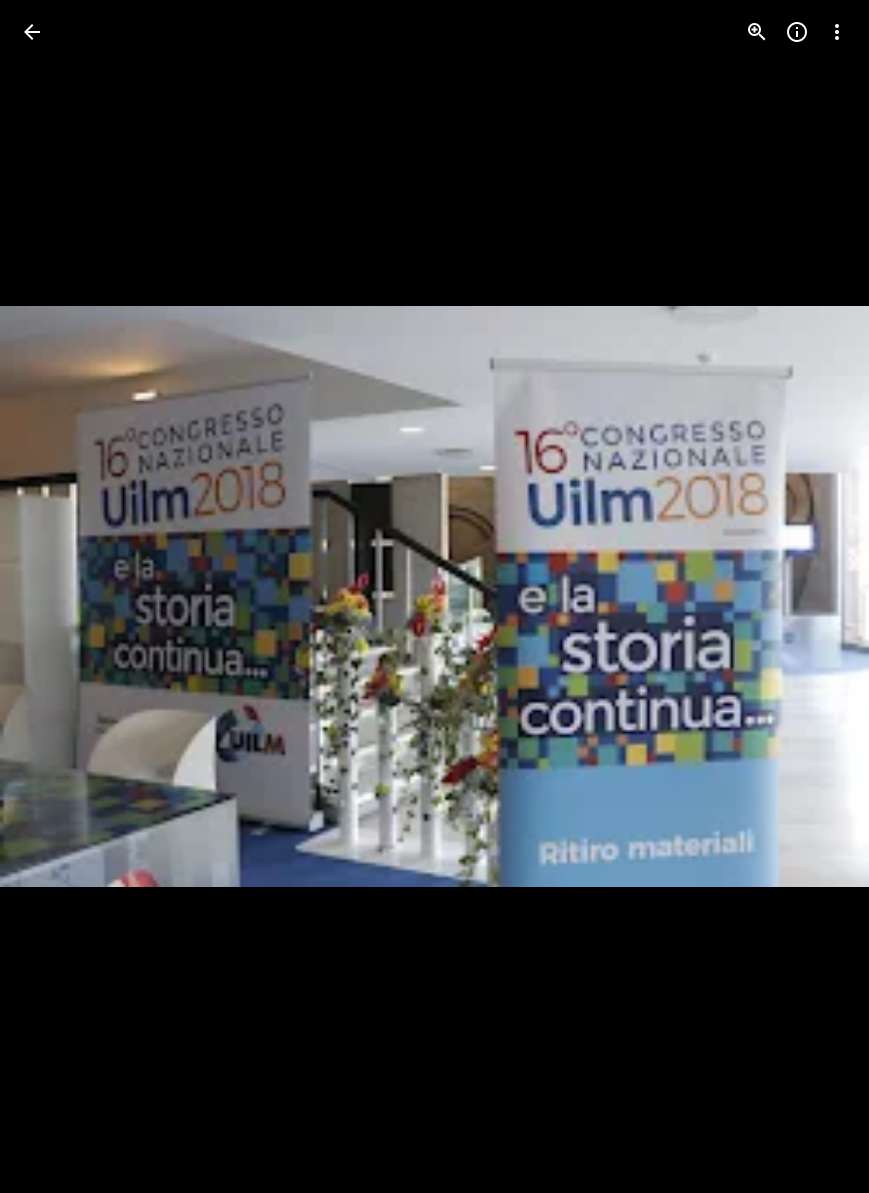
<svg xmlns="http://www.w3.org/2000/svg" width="869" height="1193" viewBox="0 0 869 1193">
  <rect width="100%" height="100%" fill="#000"/>
  <image x="24" y="24" width="16" height="16" href="images/1.png"/>
  <image x="748" y="23" width="18" height="18" href="images/2.png"/>
  <image x="787" y="22" width="20" height="20" href="images/3.png"/>
  <image x="835" y="24" width="4" height="16" href="images/4.png"/>
  <image x="0" y="306" width="869" height="581" href="images/5.png"/>
</svg>
